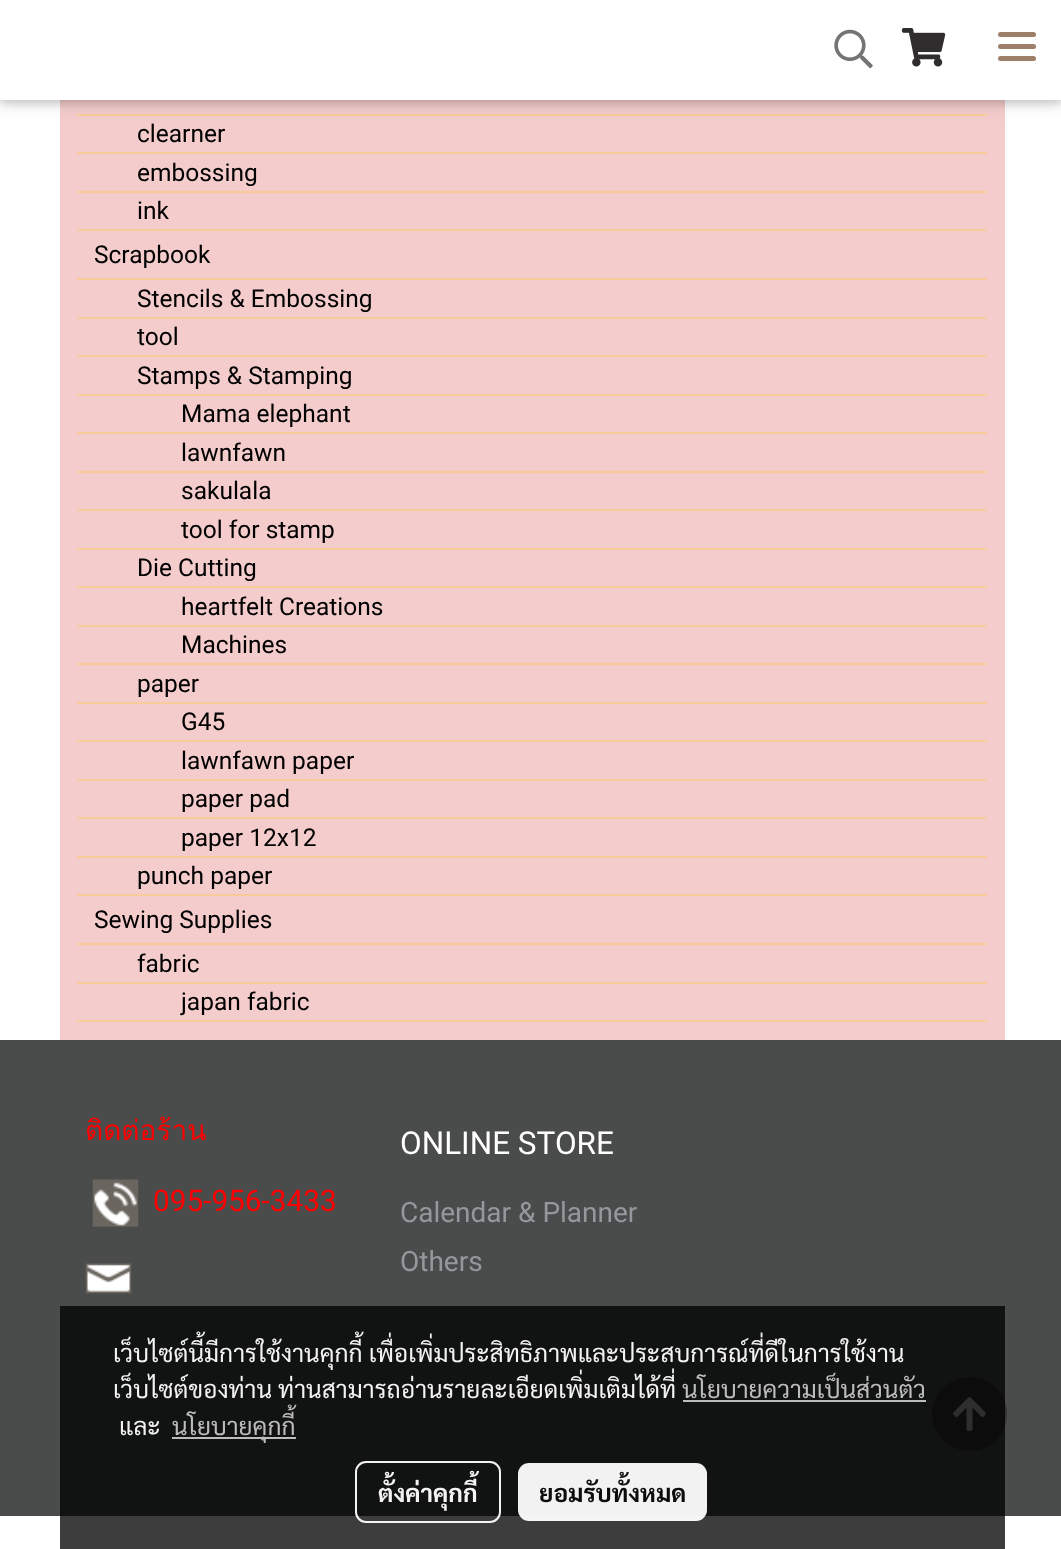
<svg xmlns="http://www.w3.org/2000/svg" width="1061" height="1549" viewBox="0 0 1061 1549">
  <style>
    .t1 { font: 24.5px Roboto; fill: #000; }
    .t2 { font: 28px Loma; fill: #f00; }
    .t3 { font: 29.75px Roboto; fill: #f00; }
    .t4 { font: 31.5px Roboto; fill: #fff; }
    .t5 { font: 28px Roboto; fill: #96979c; }
    .t6 { font: 24.5px Sarabun; fill: #f3f3f3; }
    .t7 { font: 24.5px Sarabun; fill: #bcbcbc; }
    .t8 { font: bold 24.5px Sarabun; fill: #f3f3f3; }
    .t9 { font: bold 24.5px Sarabun; fill: #0c0c0c; }
  </style>
  <rect width="100%" height="100%" fill="#fff"/>
  <rect x="60" y="100" width="945" height="940" fill="#f4cccc"/>
  <rect x="77" y="114" width="910" height="2" fill="#f9cb9c"/>
  <rect x="0" y="4" width="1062" height="99" fill="#0000001f" filter="blur(9px)"/>
  <rect x="0" y="4" width="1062" height="99" fill="#00000029" filter="blur(4.5px)"/>
  <rect x="0" y="0" width="1061" height="100" fill="#fff"/>
  <image x="834" y="29" width="39" height="40" href="images/1.png"/>
  <image x="901" y="28" width="45" height="39" href="images/2.png"/>
  <rect x="998" y="44" width="38" height="5" rx="2.5" fill="#9e7f6a"/>
  <rect x="998" y="32" width="38" height="5" rx="2.5" fill="#9e7f6a"/>
  <rect x="998" y="56" width="38" height="5" rx="2.5" fill="#9e7f6a"/>
  <rect x="77" y="152" width="910" height="2" fill="#f9cb9c"/>
  <text x="137" y="142" class="t1">clearner</text>
  <rect x="77" y="191" width="910" height="2" fill="#f9cb9c"/>
  <text x="137" y="181" class="t1">embossing</text>
  <rect x="77" y="229" width="910" height="2" fill="#f9cb9c"/>
  <text x="137" y="219" class="t1">ink</text>
  <rect x="77" y="278" width="910" height="2" fill="#f9cb9c"/>
  <text x="94" y="263" class="t1">Scrapbook</text>
  <rect x="77" y="317" width="910" height="2" fill="#f9cb9c"/>
  <text x="137" y="307" class="t1">Stencils &amp; Embossing</text>
  <rect x="77" y="355" width="910" height="2" fill="#f9cb9c"/>
  <text x="137" y="345" class="t1">tool</text>
  <rect x="77" y="394" width="910" height="2" fill="#f9cb9c"/>
  <text x="137" y="384" class="t1">Stamps &amp; Stamping</text>
  <rect x="77" y="432" width="910" height="2" fill="#f9cb9c"/>
  <text x="181" y="422" class="t1">Mama elephant</text>
  <rect x="77" y="471" width="910" height="2" fill="#f9cb9c"/>
  <text x="181" y="461" class="t1">lawnfawn</text>
  <rect x="77" y="509" width="910" height="2" fill="#f9cb9c"/>
  <text x="181" y="499" class="t1">sakulala</text>
  <rect x="77" y="548" width="910" height="2" fill="#f9cb9c"/>
  <text x="181" y="538" class="t1">tool for stamp</text>
  <rect x="77" y="586" width="910" height="2" fill="#f9cb9c"/>
  <text x="137" y="576" class="t1">Die Cutting</text>
  <rect x="77" y="625" width="910" height="2" fill="#f9cb9c"/>
  <text x="181" y="615" class="t1">heartfelt Creations</text>
  <rect x="77" y="663" width="910" height="2" fill="#f9cb9c"/>
  <text x="181" y="653" class="t1">Machines</text>
  <rect x="77" y="702" width="910" height="2" fill="#f9cb9c"/>
  <text x="137" y="692" class="t1">paper</text>
  <rect x="77" y="740" width="910" height="2" fill="#f9cb9c"/>
  <text x="181" y="730" class="t1">G45</text>
  <rect x="77" y="779" width="910" height="2" fill="#f9cb9c"/>
  <text x="181" y="769" class="t1">lawnfawn paper</text>
  <rect x="77" y="817" width="910" height="2" fill="#f9cb9c"/>
  <text x="181" y="807" class="t1">paper pad</text>
  <rect x="77" y="856" width="910" height="2" fill="#f9cb9c"/>
  <text x="181" y="846" class="t1">paper 12x12</text>
  <rect x="77" y="894" width="910" height="2" fill="#f9cb9c"/>
  <text x="137" y="884" class="t1">punch paper</text>
  <rect x="77" y="943" width="910" height="2" fill="#f9cb9c"/>
  <text x="94" y="928" class="t1">Sewing Supplies</text>
  <rect x="77" y="982" width="910" height="2" fill="#f9cb9c"/>
  <text x="137" y="972" class="t1">fabric</text>
  <rect x="77" y="1020" width="910" height="2" fill="#f9cb9c"/>
  <text x="181" y="1010" class="t1">japan fabric</text>
  <rect x="0" y="1040" width="1061" height="476" fill="#4a4b4b"/>
  <text x="85" y="1140" class="t2">ติดต่อร้าน</text>
  <image x="92" y="1179" width="47" height="48" href="images/3.png"/>
  <text x="153" y="1211" class="t3">095-956-3433</text>
  <image x="85" y="1263" width="47" height="31" href="images/4.png"/>
  <text x="400" y="1154" class="t4">ONLINE STORE</text>
  <text x="400" y="1222" class="t5">Calendar &amp; Planner</text>
  <text x="400" y="1271" class="t5">Others</text>
  <path d="M970 1377C949 1377 932 1393 932 1414C932 1435 949 1451 970 1451C990 1451 1007 1435 1007 1414C1007 1393 990 1377 970 1377Z" fill="#343434"/>
  <image x="953" y="1397" width="33" height="34" href="images/5.png"/>
  <rect x="60" y="1306" width="945" height="243" fill="#000000c2"/>
  <text x="113" y="1362" class="t6">เว็บไซต์นี้มีการใช้งานคุกกี้ เพื่อเพิ่มประสิทธิภาพและประสบการณ์ที่ดีในการใช้งาน</text>
  <text x="113" y="1398" class="t6">เว็บไซต์ของท่าน ท่านสามารถอ่านรายละเอียดเพิ่มเติมได้ที่</text>
  <text x="682" y="1398" class="t7">นโยบายความเป็นส่วนตัว</text>
  <rect x="683" y="1400" width="243" height="2" fill="#bcbcbc"/>
  <text x="119" y="1435" class="t6">และ</text>
  <rect x="172" y="1437" width="124" height="2" fill="#bcbcbc"/>
  <text x="172" y="1435" class="t7">นโยบายคุกกี้</text>
  <rect x="356" y="1462" width="144" height="60" rx="10" fill="none" stroke="#fffffff2" stroke-width="2"/>
  <text x="378" y="1502" class="t8">ตั้งค่าคุกกี้</text>
  <rect x="518" y="1463" width="189" height="58" rx="11" fill="#fffffff2"/>
  <text x="539" y="1502" class="t9">ยอมรับทั้งหมด</text>
</svg>
